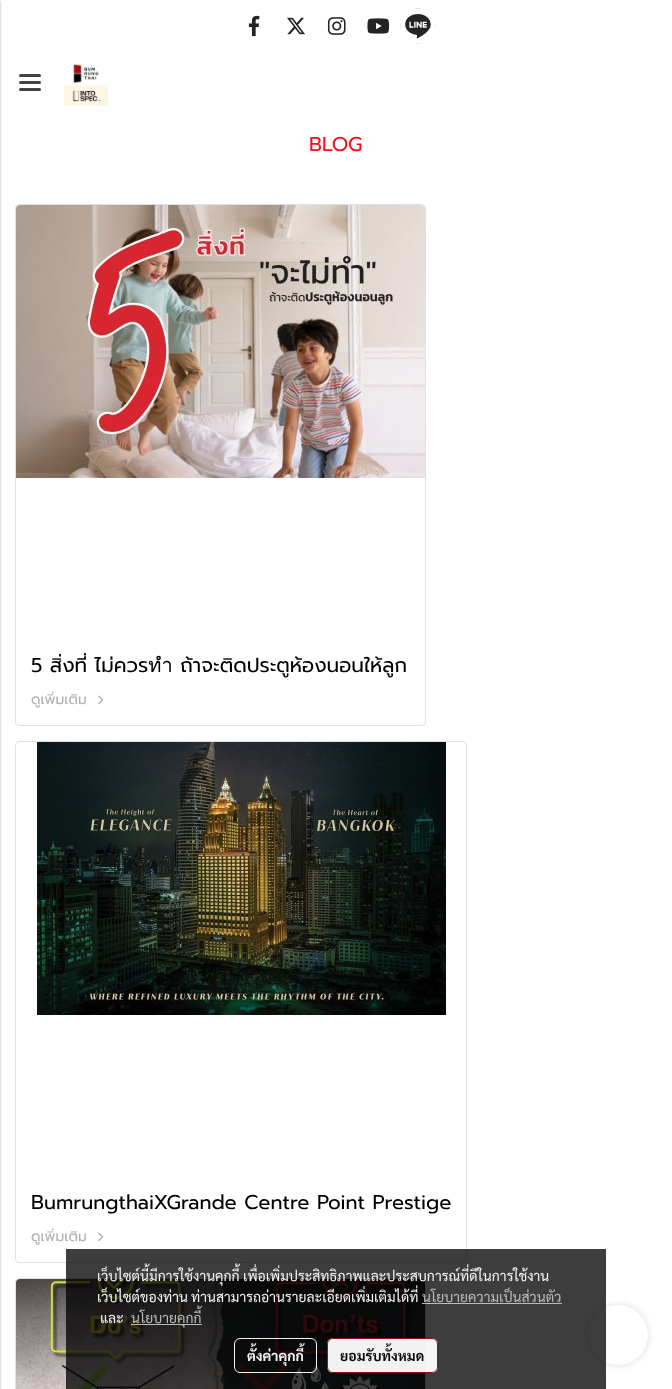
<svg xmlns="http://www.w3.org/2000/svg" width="672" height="1389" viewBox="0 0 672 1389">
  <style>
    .t1 { font: 20px Prompt; fill: #fb0d1c; }
    .t2 { font: 20px Prompt; fill: #000; }
    .t3 { font: 14px Prompt; fill: #b0b0b0; }
    .t4 { font: 14px Sarabun; fill: #f5f5f5; }
    .t5 { font: 14px Sarabun; fill: #bbb; }
    .t6 { font: bold 14px Sarabun; fill: #f5f5f5; }
    .t7 { font: bold 14px Sarabun; fill: #0c0c0c; }
  </style>
  <defs>
    <clipPath id="clip1"><rect x="31" y="689" width="379" height="21"/></clipPath>
    <clipPath id="clip2"><rect x="31" y="1226" width="420" height="21"/></clipPath>
  </defs>
  <rect width="100%" height="100%" fill="#fff"/>
  <rect x="-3" y="1" width="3" height="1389" fill="#0000003d" filter="blur(1px)"/>
  <rect x="-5" y="1" width="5" height="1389" fill="#0000001f" filter="blur(1.5px)"/>
  <rect x="19" y="81" width="22" height="3" rx="1.5" fill="#434343"/>
  <rect x="19" y="74" width="22" height="3" rx="1.5" fill="#434343"/>
  <rect x="19" y="88" width="22" height="3" rx="1.5" fill="#434343"/>
  <image x="64" y="63" width="44" height="43" href="images/1.png"/>
  <image x="248" y="15" width="12" height="22" href="images/2.png"/>
  <image x="287" y="17" width="18" height="18" href="images/3.png"/>
  <image x="327" y="17" width="19" height="18" href="images/4.png"/>
  <image x="367" y="18" width="23" height="16" href="images/5.png"/>
  <image x="400" y="8" width="36" height="36" href="images/6.png"/>
  <text x="309" y="151" class="t1">BLOG</text>
  <rect x="15.5" y="204.5" width="410" height="521" rx="3.5" fill="none" stroke="#dee2e6"/>
  <image x="16" y="205" width="409" height="273" href="images/7.png"/>
  <text x="31" y="672" class="t2">5 สิ่งที่ ไม่ควรทำ ถ้าจะติดประตูห้องนอนให้ลูก</text>
  <g clip-path="url(#clip1)">
    <text x="31" y="704" class="t3">ดูเพิ่มเติม</text>
  </g>
  <image x="98" y="695" width="6" height="10" href="images/8.png"/>
  <rect x="15.5" y="741.5" width="451" height="521" rx="3.5" fill="none" stroke="#dee2e6"/>
  <image x="37" y="742" width="409" height="273" href="images/9.png"/>
  <text x="31" y="1209" class="t2">BumrungthaiXGrande Centre Point Prestige</text>
  <g clip-path="url(#clip2)">
    <text x="31" y="1241" class="t3">ดูเพิ่มเติม</text>
  </g>
  <image x="98" y="1232" width="6" height="10" href="images/8.png"/>
  <rect x="15.5" y="1278.5" width="410" height="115" rx="3.5" fill="none" stroke="#dee2e6"/>
  <image x="16" y="1279" width="409" height="110" href="images/10.png"/>
  <rect x="588" y="1305" width="60" height="60" rx="30" fill="#00000024" filter="blur(3.5px)"/>
  <circle cx="618" cy="1335" r="30" fill="#fff"/>
  <rect x="66" y="1249" width="540" height="140" fill="#000000c2"/>
  <text x="97" y="1281" class="t4">เว็บไซต์นี้มีการใช้งานคุกกี้ เพื่อเพิ่มประสิทธิภาพและประสบการณ์ที่ดีในการใช้งาน</text>
  <text x="97" y="1302" class="t4">เว็บไซต์ของท่าน</text>
  <text x="191" y="1302" class="t4">ท่านสามารถอ่านรายละเอียดเพิ่มเติมได้ที่</text>
  <text x="422" y="1302" class="t5">นโยบายความเป็นส่วนตัว</text>
  <rect x="422" y="1303" width="140" height="1" fill="#c2c2c2f2"/>
  <text x="100" y="1323" class="t4">และ</text>
  <rect x="131" y="1324" width="71" height="1" fill="#c2c2c2f2"/>
  <text x="131" y="1323" class="t5">นโยบายคุกกี้</text>
  <rect x="234.5" y="1338.5" width="82" height="34" rx="5.5" fill="none" stroke="#fffffff2"/>
  <text x="247" y="1361" class="t6">ตั้งค่าคุกกี้</text>
  <rect x="327" y="1338" width="111" height="35" rx="6" fill="#fffffff2"/>
  <rect x="327.5" y="1338.5" width="110" height="34" rx="5.5" fill="none" stroke="#980000f2"/>
  <text x="340" y="1361" class="t7">ยอมรับทั้งหมด</text>
</svg>
